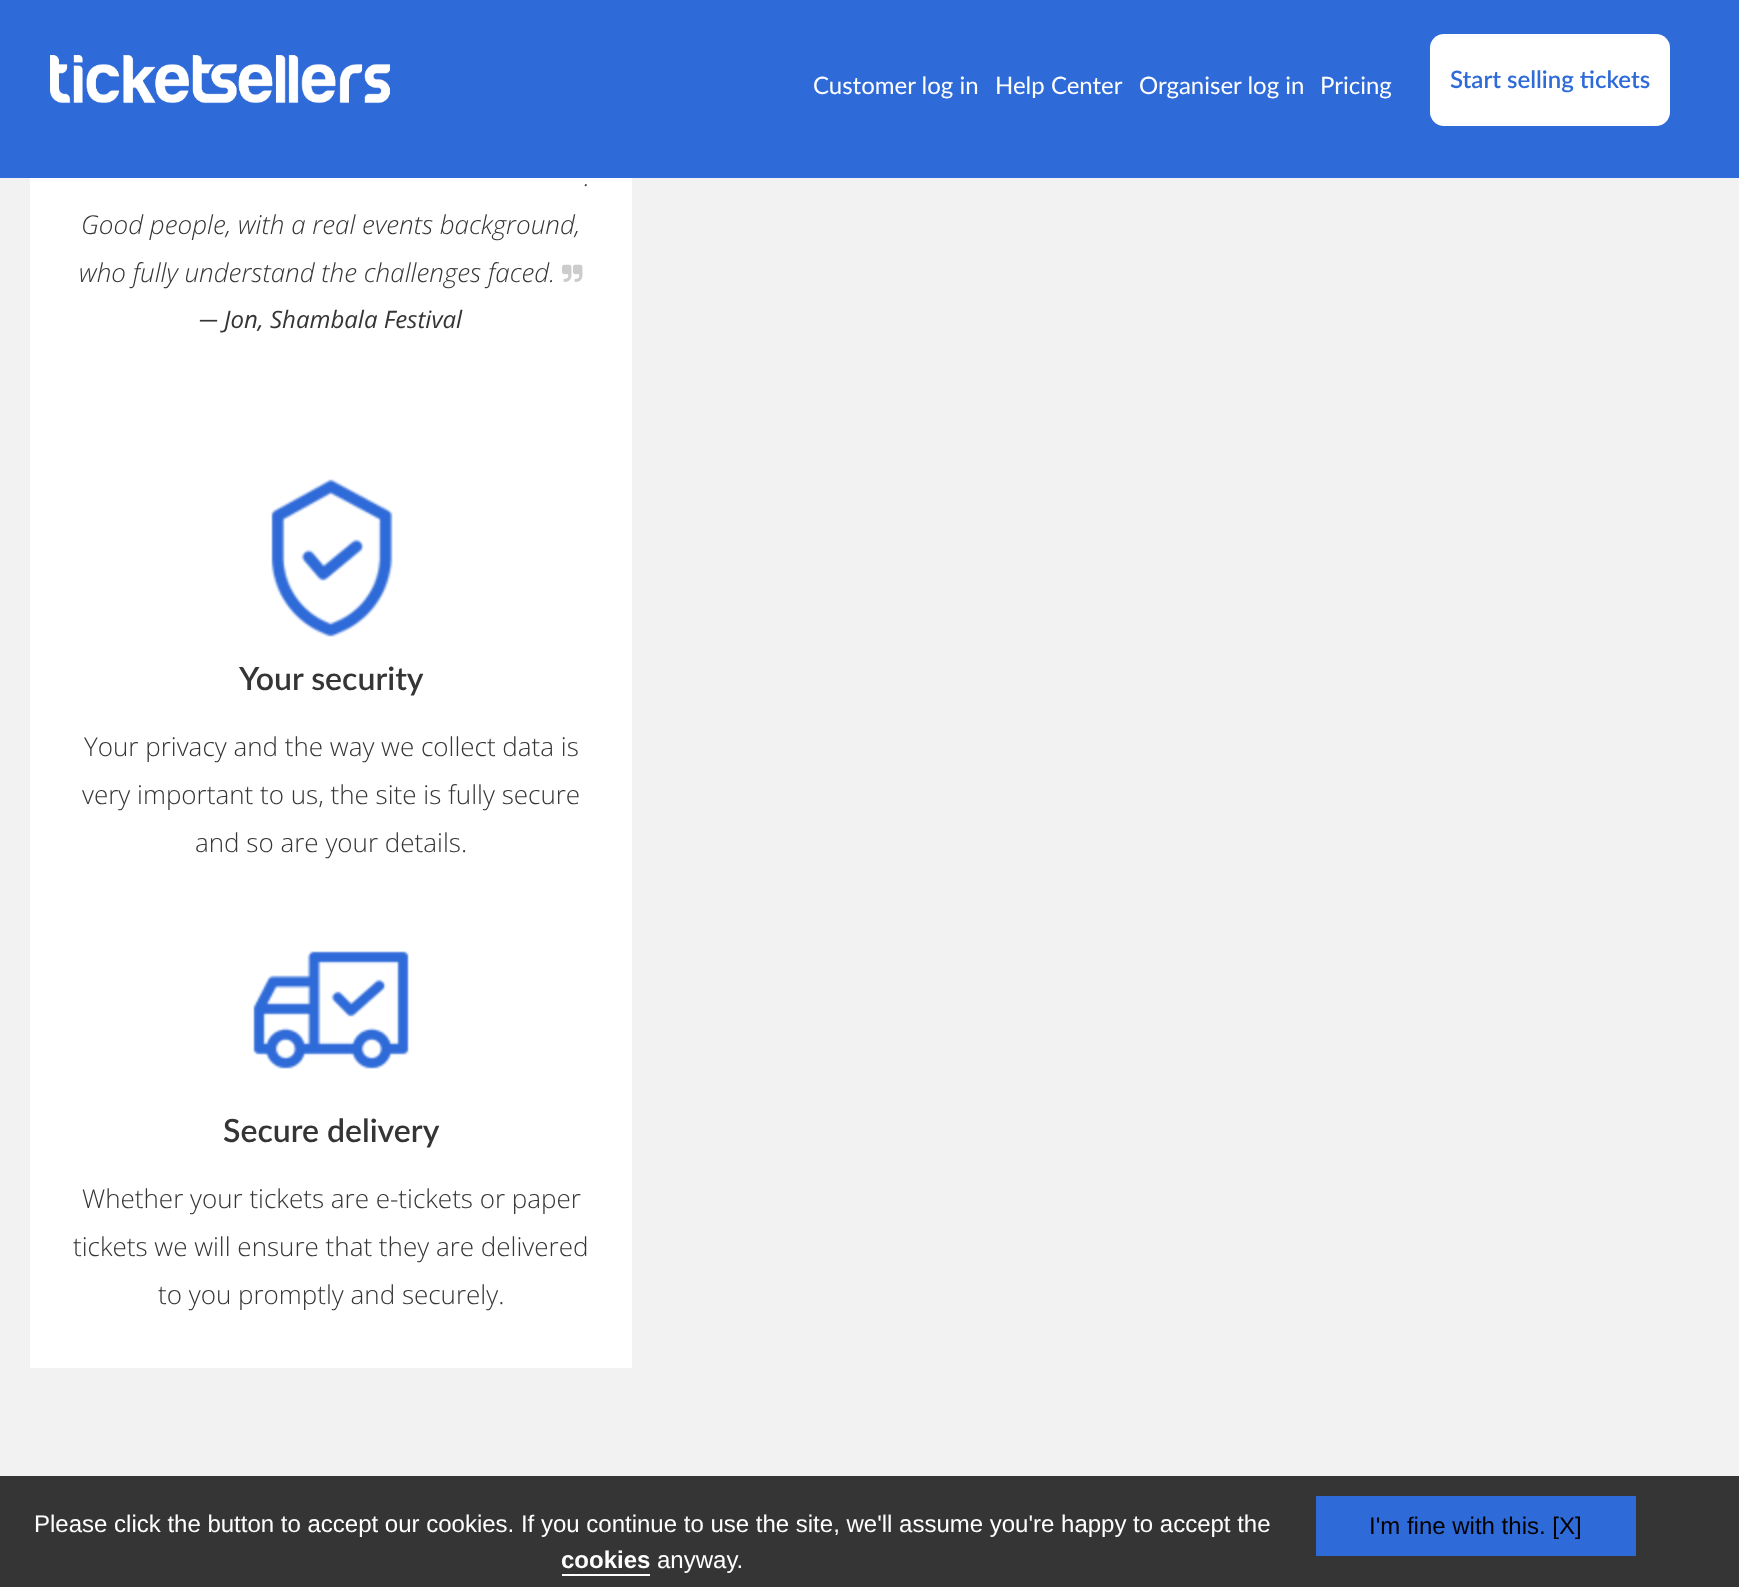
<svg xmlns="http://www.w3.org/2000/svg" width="1739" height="1587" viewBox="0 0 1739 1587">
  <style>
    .t1 { font: 24px Lato; fill: #fff; }
    .t2 { font: 600 24px Lato; fill: #2e6ad8; }
    .t3 { font: italic 300 26px Open Sans; fill: #353535; }
    .t4 { font: italic 24px Liberation Sans; fill: #353535; }
    .t5 { font: italic 24px Open Sans; fill: #353535; }
    .t6 { font: 600 32px Lato; fill: #353535; }
    .t7 { font: 300 26px Open Sans; fill: #353535; }
    .t8 { font: 24px Liberation Sans; fill: #fff; }
    .t9 { font: bold 24px Liberation Sans; fill: #fff; }
    .t10 { font: 24px Liberation Sans; fill: #000; }
  </style>
  <rect width="100%" height="100%" fill="#f2f2f2"/>
  <rect x="0" y="0" width="1739" height="178" fill="#2e6ad8"/>
  <image x="50" y="55" width="340" height="49" href="images/1.png"/>
  <text x="813" y="94" class="t1">Customer log in</text>
  <text x="995" y="94" class="t1">Help Center</text>
  <text x="1139" y="94" class="t1">Organiser log in</text>
  <text x="1320" y="94" class="t1">Pricing</text>
  <rect x="1430" y="34" width="240" height="92" rx="14" fill="#fff"/>
  <text x="1450" y="88" class="t2">Start selling tickets</text>
  <rect x="30" y="178" width="602" height="1190" fill="#fff"/>
  <text x="584" y="186" class="t3">.</text>
  <text x="81" y="234" class="t3">Good people, with a real events background,</text>
  <text x="79" y="282" class="t3">who fully understand the challenges faced.</text>
  <image x="562" y="264" width="21" height="18" href="images/2.png"/>
  <text x="200" y="328" class="t4">─</text>
  <text x="224" y="328" class="t5">Jon, Shambala Festival</text>
  <image x="271" y="479" width="122" height="158" href="images/3.png"/>
  <text x="239" y="690" class="t6">Your security</text>
  <text x="84" y="756" class="t7">Your privacy and the way we collect data is</text>
  <text x="82" y="804" class="t7">very important to us, the site is fully secure</text>
  <text x="195" y="852" class="t7">and so are your details.</text>
  <image x="253" y="951" width="156" height="118" href="images/4.png"/>
  <text x="223" y="1142" class="t6">Secure delivery</text>
  <text x="82" y="1208" class="t7">Whether your tickets are e-tickets or paper</text>
  <text x="73" y="1256" class="t7">tickets we will ensure that they are delivered</text>
  <text x="158" y="1304" class="t7">to you promptly and securely.</text>
  <rect x="0" y="1476" width="1739" height="111" fill="#353535"/>
  <text x="34" y="1532" class="t8">Please click the button to accept our cookies. If you continue to use the site, we'll assume you're happy to accept the</text>
  <text x="561" y="1568" class="t9">cookies</text>
  <rect x="562" y="1574" width="88" height="2" fill="#fff"/>
  <text x="657" y="1568" class="t8">anyway.</text>
  <rect x="1316" y="1496" width="320" height="60" fill="#2e6ad8"/>
  <text x="1369" y="1534" class="t10">I'm fine with this. [X]</text>
</svg>
